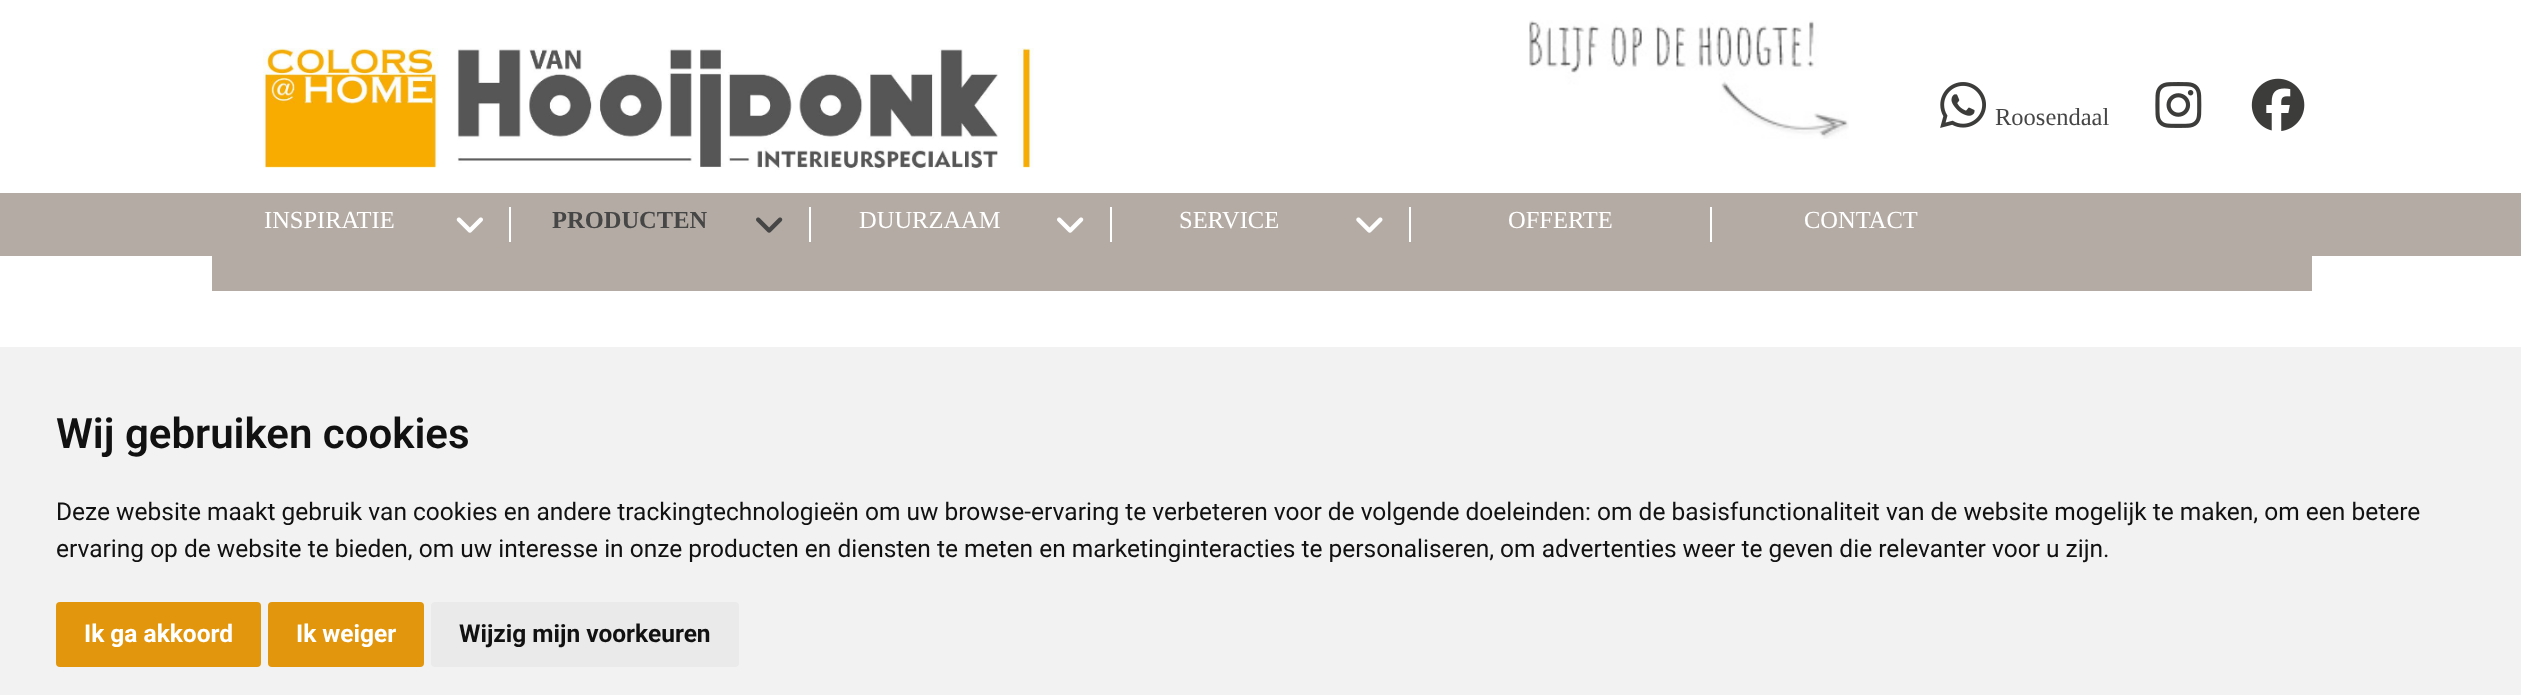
<svg xmlns="http://www.w3.org/2000/svg" width="2521" height="695" viewBox="0 0 2521 695">
  <style>
    .t1 { font: 24.5px Liberation Serif; fill: #464646; }
    .t2 { font: 24.5px Liberation Serif; fill: #fff; }
    .t3 { font: bold 24.5px Liberation Serif; fill: #464646; }
    .t4 { font: 600 42px Roboto; fill: #111; }
    .t5 { font: 24.5px Roboto; fill: #111; }
    .t6 { font: bold 24.5px Roboto; fill: #fff; }
    .t7 { font: bold 24.5px Roboto; fill: #111; }
  </style>
  <rect width="100%" height="100%" fill="#fff"/>
  <image x="263" y="48" width="771" height="122" href="images/1.png"/>
  <image x="1529" y="20" width="320" height="119" href="images/2.png"/>
  <image x="1940" y="82" width="46" height="46" href="images/3.png"/>
  <text x="1995" y="125" class="t1">Roosendaal</text>
  <image x="2155" y="82" width="47" height="46" href="images/4.png"/>
  <image x="2251" y="78" width="54" height="53" href="images/5.png"/>
  <rect x="0" y="193" width="2521" height="63" fill="#b4aba4"/>
  <rect x="509" y="207" width="2" height="35" fill="#fff"/>
  <text x="264" y="228" class="t2">INSPIRATIE</text>
  <image x="456" y="217" width="27" height="16" href="images/6.png"/>
  <rect x="809" y="207" width="2" height="35" fill="#fff"/>
  <text x="552" y="228" class="t3">PRODUCTEN</text>
  <image x="756" y="217" width="27" height="16" href="images/7.png"/>
  <rect x="1110" y="207" width="2" height="35" fill="#fff"/>
  <text x="859" y="228" class="t2">DUURZAAM</text>
  <image x="1057" y="217" width="27" height="16" href="images/8.png"/>
  <rect x="1409" y="207" width="2" height="35" fill="#fff"/>
  <text x="1179" y="228" class="t2">SERVICE</text>
  <image x="1356" y="217" width="27" height="16" href="images/9.png"/>
  <rect x="1710" y="207" width="2" height="35" fill="#fff"/>
  <text x="1508" y="228" class="t2">OFFERTE</text>
  <text x="1804" y="228" class="t2">CONTACT</text>
  <rect x="212" y="256" width="2100" height="35" fill="#b4aba4"/>
  <rect x="0" y="347" width="2521" height="348" fill="#f2f2f2"/>
  <text x="56" y="448" class="t4">Wij gebruiken cookies</text>
  <text x="56" y="520" class="t5">Deze website maakt gebruik van cookies en andere trackingtechnologieën om uw browse-ervaring te verbeteren voor de volgende doeleinden: om de basisfunctionaliteit van de website mogelijk te maken, om een betere</text>
  <text x="56" y="557" class="t5">ervaring op de website te bieden, om uw interesse in onze producten en diensten te meten en marketinginteracties te personaliseren, om advertenties weer te geven die relevanter voor u zijn.</text>
  <rect x="56" y="602" width="205" height="65" rx="4" fill="#e1960e"/>
  <text x="84" y="642" class="t6">Ik ga akkoord</text>
  <rect x="268" y="602" width="156" height="65" rx="4" fill="#e1960e"/>
  <text x="296" y="642" class="t6">Ik weiger</text>
  <rect x="431" y="602" width="308" height="65" rx="4" fill="#eaeaea"/>
  <text x="459" y="642" class="t7">Wijzig mijn voorkeuren</text>
</svg>
